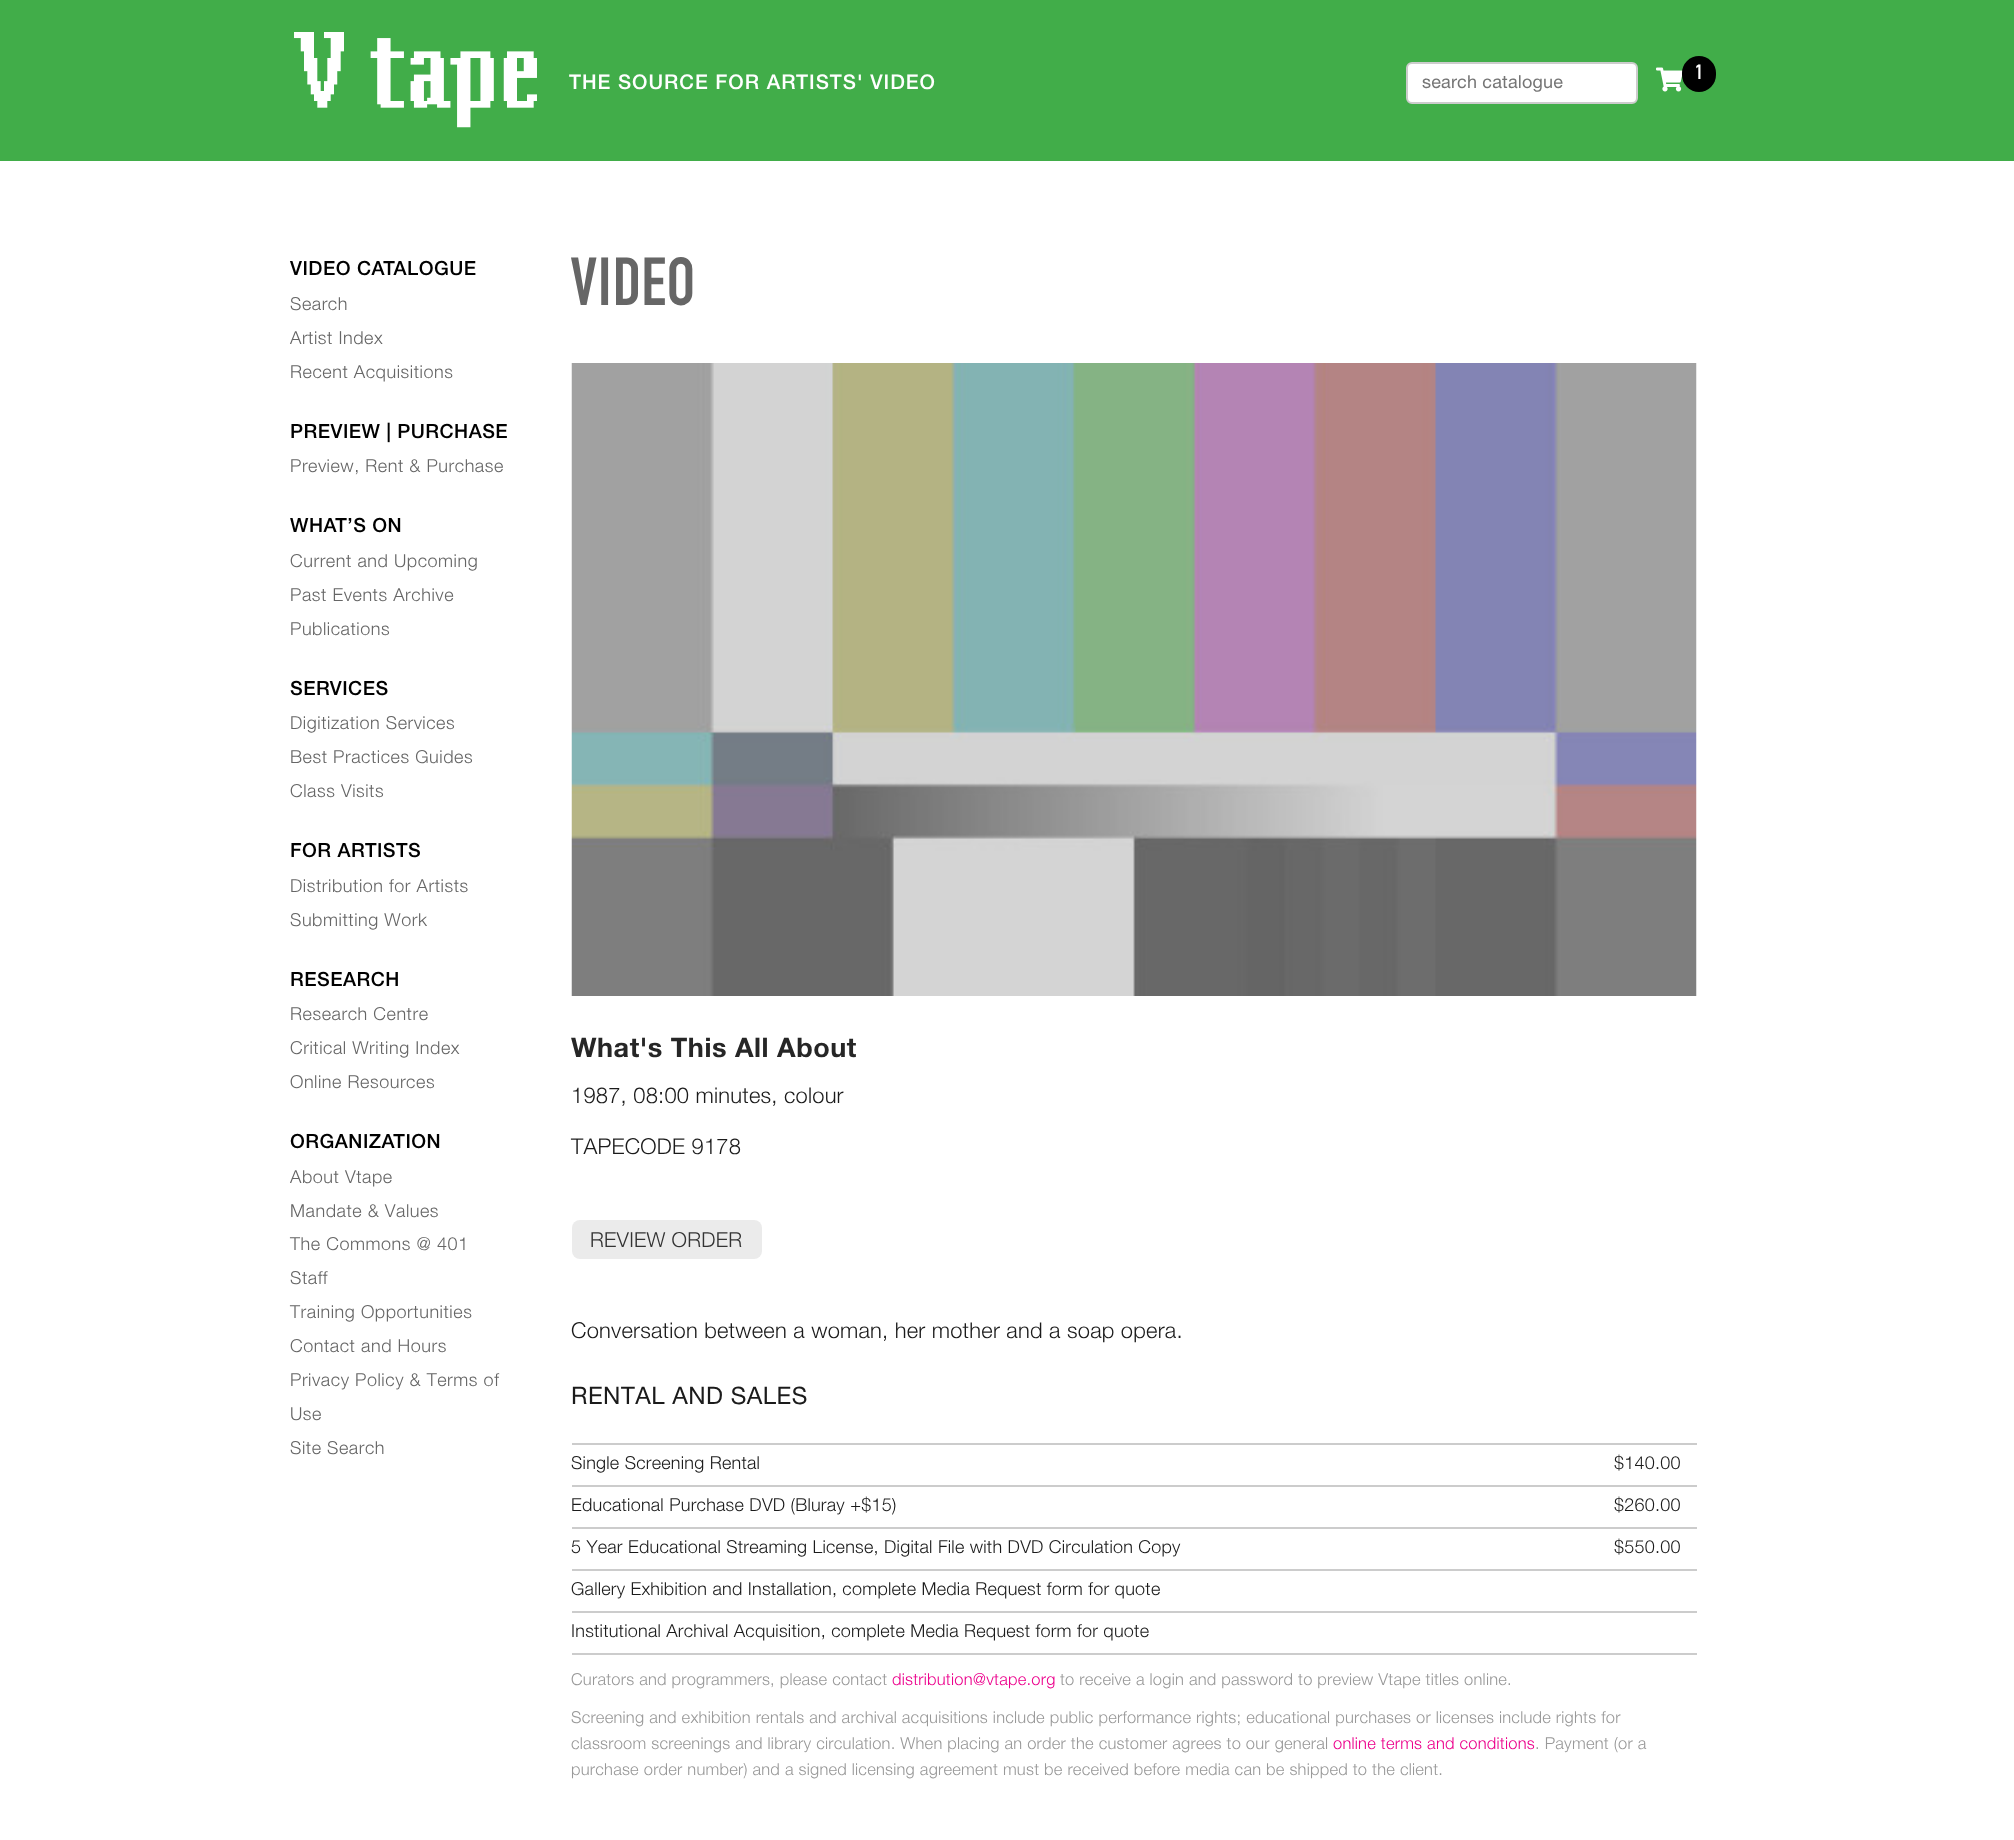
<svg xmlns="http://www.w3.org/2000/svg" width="2014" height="1840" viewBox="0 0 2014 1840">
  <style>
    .t1 { font: 500 20.25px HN; letter-spacing: 1px; fill: #fff; }
    .t2 { font: 20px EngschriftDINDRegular; letter-spacing: 0.24px; fill: #fff; }
    .t3 { font: 18px HN; letter-spacing: 0.2px; fill: #757575; }
    .t4 { font: 500 19.5px HN; letter-spacing: 0.5px; fill: #000; }
    .t5 { font: 300 18px HN; letter-spacing: 0.55px; fill: #666; }
    .t6 { font: 66px EngschriftDINDRegular; letter-spacing: 0.5px; fill: #666; }
    .t7 { font: bold 27px HN; letter-spacing: 0.55px; fill: #262626; }
    .t8 { font: 300 21.9px HN; letter-spacing: 0.24px; fill: #1b1b1b; }
    .t9 { font: 300 20.75px HN; letter-spacing: 0.24px; fill: #333; }
    .t10 { font: 24px HN; letter-spacing: 0.5px; fill: #1b1b1b; }
    .t11 { font: 300 18px HN; letter-spacing: 0.24px; fill: #1b1b1b; }
    .t12 { font: 300 16.5px HN; letter-spacing: 0.24px; fill: #999; }
    .t13 { font: 300 16.5px HN; letter-spacing: 0.24px; fill: #ec008c; }
  </style>
  <rect width="100%" height="100%" fill="#fff"/>
  <rect x="0" y="0" width="2014" height="161" fill="#41ad49"/>
  <image x="294" y="32" width="243" height="96" href="images/1.png"/>
  <text x="569" y="89" class="t1">THE SOURCE FOR ARTISTS' VIDEO</text>
  <image x="1656" y="67" width="27" height="25" href="images/2.png"/>
  <rect x="1682" y="56" width="34" height="36" rx="17" fill="#000"/>
  <text x="1695" y="79" class="t2">1</text>
  <rect x="1407" y="63" width="230" height="40" rx="5" fill="#fff" stroke="#ccc" stroke-width="2"/>
  <text x="1422" y="88" class="t3">search catalogue</text>
  <text x="290" y="275" class="t4">VIDEO CATALOGUE</text>
  <text x="290" y="310" class="t5">Search</text>
  <text x="290" y="344" class="t5">Artist Index</text>
  <text x="290" y="378" class="t5">Recent Acquisitions</text>
  <text x="290" y="438" class="t4">PREVIEW | PURCHASE</text>
  <text x="290" y="472" class="t5">Preview, Rent &amp; Purchase</text>
  <text x="290" y="532" class="t4">WHAT’S ON</text>
  <text x="290" y="567" class="t5">Current and Upcoming</text>
  <text x="290" y="601" class="t5">Past Events Archive</text>
  <text x="290" y="635" class="t5">Publications</text>
  <text x="290" y="695" class="t4">SERVICES</text>
  <text x="290" y="729" class="t5">Digitization Services</text>
  <text x="290" y="763" class="t5">Best Practices Guides</text>
  <text x="290" y="797" class="t5">Class Visits</text>
  <text x="290" y="857" class="t4">FOR ARTISTS</text>
  <text x="290" y="892" class="t5">Distribution for Artists</text>
  <text x="290" y="926" class="t5">Submitting Work</text>
  <text x="290" y="986" class="t4">RESEARCH</text>
  <text x="290" y="1020" class="t5">Research Centre</text>
  <text x="290" y="1054" class="t5">Critical Writing Index</text>
  <text x="290" y="1088" class="t5">Online Resources</text>
  <text x="290" y="1148" class="t4">ORGANIZATION</text>
  <text x="290" y="1183" class="t5">About Vtape</text>
  <text x="290" y="1217" class="t5">Mandate &amp; Values</text>
  <text x="290" y="1250" class="t5">The Commons @ 401</text>
  <text x="290" y="1284" class="t5">Staff</text>
  <text x="290" y="1318" class="t5">Training Opportunities</text>
  <text x="290" y="1352" class="t5">Contact and Hours</text>
  <text x="290" y="1386" class="t5">Privacy Policy &amp; Terms of</text>
  <text x="290" y="1420" class="t5">Use</text>
  <text x="290" y="1454" class="t5">Site Search</text>
  <text x="571" y="305" class="t6">VIDEO</text>
  <image x="571" y="363" width="1126" height="633" href="images/3.png"/>
  <text x="571" y="1057" class="t7">What's This All About</text>
  <text x="571" y="1103" class="t8">1987, 08:00 minutes, colour</text>
  <text x="571" y="1154" class="t8">TAPECODE 9178</text>
  <rect x="572" y="1220" width="190" height="39" rx="8" fill="#ebebeb"/>
  <text x="590" y="1247" class="t9">REVIEW ORDER</text>
  <text x="571" y="1338" class="t8">Conversation between a woman, her mother and a soap opera.</text>
  <text x="571" y="1404" class="t10">RENTAL AND SALES</text>
  <rect x="572" y="1443" width="1125" height="2" fill="#ccc"/>
  <rect x="572" y="1485" width="1125" height="2" fill="#ccc"/>
  <text x="571" y="1469" class="t11">Single Screening Rental</text>
  <text x="1614" y="1469" class="t11">$140.00</text>
  <rect x="572" y="1527" width="1125" height="2" fill="#ccc"/>
  <text x="571" y="1511" class="t11">Educational Purchase DVD (Bluray +$15)</text>
  <text x="1614" y="1511" class="t11">$260.00</text>
  <rect x="572" y="1569" width="1125" height="2" fill="#ccc"/>
  <text x="571" y="1553" class="t11">5 Year Educational Streaming License, Digital File with DVD Circulation Copy</text>
  <text x="1614" y="1553" class="t11">$550.00</text>
  <rect x="572" y="1611" width="1125" height="2" fill="#ccc"/>
  <text x="571" y="1595" class="t11">Gallery Exhibition and Installation, complete Media Request form for quote</text>
  <rect x="572" y="1653" width="1125" height="2" fill="#ccc"/>
  <text x="571" y="1637" class="t11">Institutional Archival Acquisition, complete Media Request form for quote</text>
  <text x="571" y="1685" class="t12">Curators and programmers, please contact</text>
  <text x="892" y="1685" class="t13">distribution@vtape.org</text>
  <text x="1060" y="1685" class="t12">to receive a login and password to preview Vtape titles online.</text>
  <text x="571" y="1723" class="t12">Screening and exhibition rentals and archival acquisitions include public performance rights; educational purchases or licenses include rights for</text>
  <text x="571" y="1749" class="t12">classroom screenings and library circulation. When placing an order the customer agrees to our general</text>
  <text x="1333" y="1749" class="t13">online terms and conditions</text>
  <text x="1535" y="1749" class="t12">. Payment (or a</text>
  <text x="571" y="1775" class="t12">purchase order number) and a signed licensing agreement must be received before media can be shipped to the client.</text>
</svg>
